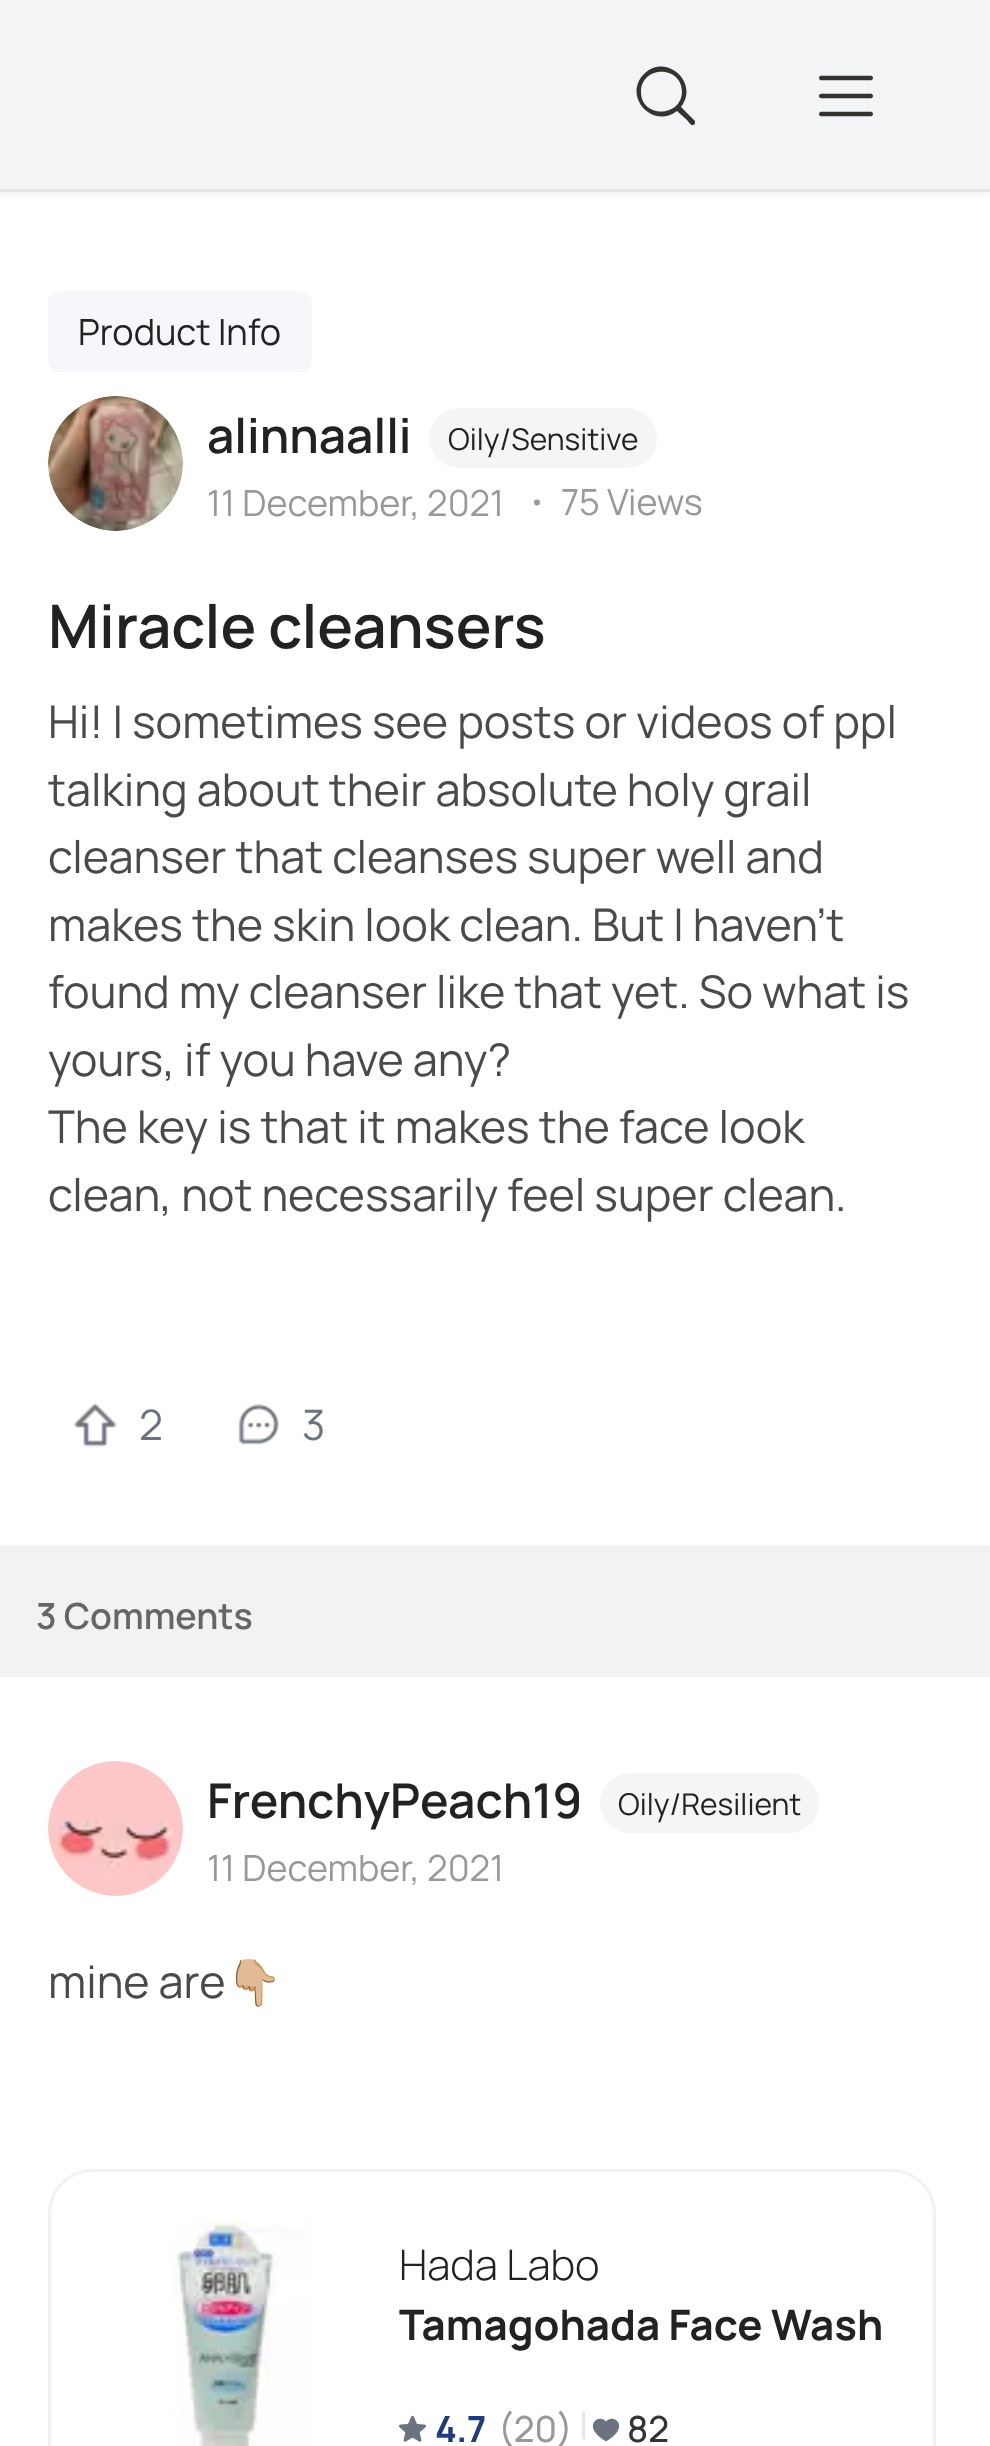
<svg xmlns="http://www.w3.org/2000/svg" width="990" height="2446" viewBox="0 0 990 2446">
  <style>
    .t1 { font: 36px Manrope; fill: #222; }
    .t2 { font: 600 48px Manrope; fill: #222; }
    .t3 { font: 30px Manrope; fill: #222; }
    .t4 { font: 36px Manrope; fill: #999; }
    .t5 { font: 600 60px Manrope; fill: #222; }
    .t6 { font: 45px Manrope; fill: #4a4a4a; }
    .t7 { font: 42px Manrope; fill: #6b7280; }
    .t8 { font: 600 36px Manrope; fill: #666; }
    .t9 { font: 45px Noto Color Emoji; fill: #4a4a4a; }
    .t10 { font: 300 42px Manrope; fill: #222; }
    .t11 { font: bold 42px Manrope; fill: #222; }
    .t12 { font: bold 36px Manrope; fill: #203c7d; }
    .t13 { font: 500 36px Manrope; fill: #999; }
    .t14 { font: 500 36px Manrope; fill: #333; }
  </style>
  <rect width="100%" height="100%" fill="#fff"/>
  <rect x="0" y="3" width="990" height="192" fill="#0000000f" filter="blur(4.5px)"/>
  <rect x="0" y="0" width="990" height="189" fill="#f3f4f6"/>
  <rect x="0" y="189" width="990" height="3" fill="#e5e5e5"/>
  <path d="M695 121L681 107C700 83 666 52 644 74C622 96 653 130 677 111L687 120C688 121 691 126 693 125C694 125 695 124 695 123ZM641 92C641 65 682 65 682 92C681 118 641 118 641 92Z" fill="#343330"/>
  <image x="819" y="75" width="54" height="42" href="images/1.png"/>
  <rect x="48" y="291" width="264" height="81" rx="12" fill="#f6f7fa"/>
  <text x="78" y="345" class="t1">Product Info</text>
  <image x="48" y="396" width="135" height="135" href="images/2.png"/>
  <text x="207" y="453" class="t2">alinnaalli</text>
  <rect x="429" y="408" width="228" height="60" rx="30" fill="#f5f5f5"/>
  <text x="448" y="450" class="t3">Oily/Sensitive</text>
  <text x="207" y="516" class="t4">11 December, 2021</text>
  <circle cx="537" cy="502.5" r="3" fill="#999"/>
  <text x="561" y="515" class="t4">75 Views</text>
  <text x="48" y="648" class="t5">Miracle cleansers</text>
  <text x="48" y="738" class="t6">Hi! I sometimes see posts or videos of ppl</text>
  <text x="48" y="806" class="t6">talking about their absolute holy grail</text>
  <text x="48" y="873" class="t6">cleanser that cleanses super well and</text>
  <text x="48" y="941" class="t6">makes the skin look clean. But I haven’t</text>
  <text x="48" y="1008" class="t6">found my cleanser like that yet. So what is</text>
  <text x="48" y="1076" class="t6">yours, if you have any?</text>
  <text x="48" y="1143" class="t6">The key is that it makes the face look</text>
  <text x="48" y="1211" class="t6">clean, not necessarily feel super clean.</text>
  <image x="73" y="1403" width="44" height="45" href="images/3.png"/>
  <text x="139" y="1440" class="t7">2</text>
  <image x="238" y="1404" width="41" height="41" href="images/4.png"/>
  <text x="302" y="1440" class="t7">3</text>
  <rect x="0" y="1545" width="990" height="132" fill="#f2f2f2"/>
  <text x="36" y="1629" class="t8">3 Comments</text>
  <image x="48" y="1761" width="135" height="135" href="images/5.png"/>
  <text x="207" y="1818" class="t2">FrenchyPeach19</text>
  <rect x="600" y="1773" width="219" height="60" rx="30" fill="#f5f5f5"/>
  <text x="618" y="1815" class="t3">Oily/Resilient</text>
  <text x="207" y="1881" class="t4">11 December, 2021</text>
  <text x="48" y="1998" class="t6">mine are</text>
  <text x="226" y="1998" class="t9">👇🏼</text>
  <rect x="49.5" y="2170.5" width="885" height="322" rx="43.5" fill="none" stroke="#f0f2f6" stroke-width="3"/>
  <image x="172" y="2220" width="138" height="226" href="images/6.png"/>
  <text x="399" y="2280" class="t10">Hada Labo</text>
  <text x="399" y="2340" class="t11">Tamagohada Face Wash</text>
  <image x="399" y="2415" width="27" height="27" href="images/7.png"/>
  <text x="435" y="2442" class="t12">4.7</text>
  <text x="498" y="2442" class="t13">(20)</text>
  <rect x="582" y="2412" width="3" height="27" fill="#e5e5e5"/>
  <image x="592" y="2418" width="28" height="24" href="images/8.png"/>
  <text x="627" y="2442" class="t14">82</text>
</svg>
